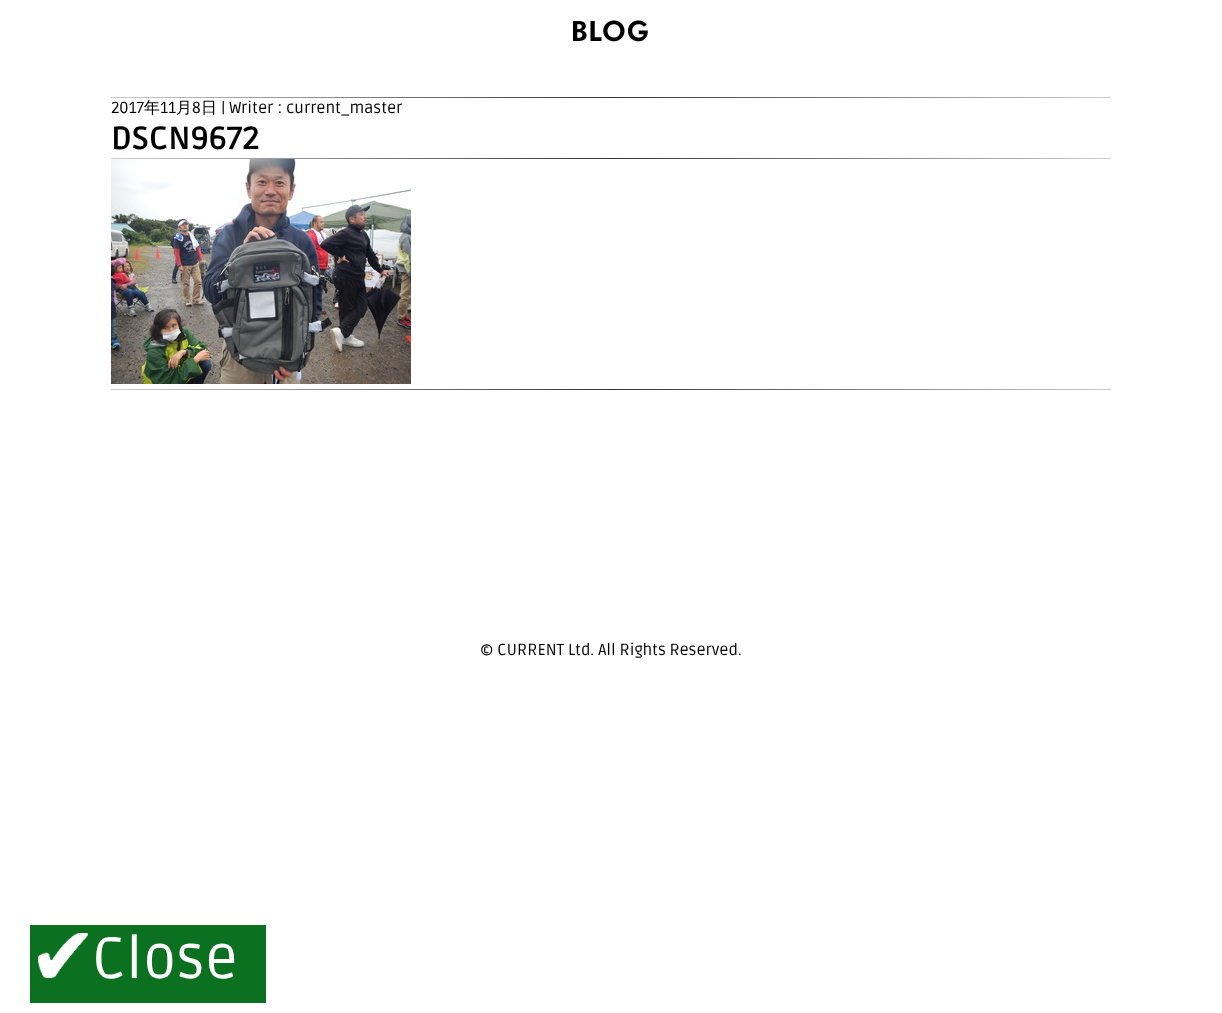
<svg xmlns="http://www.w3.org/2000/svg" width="1222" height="1013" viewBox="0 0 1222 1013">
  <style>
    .t1 { font: 16px Ruda; fill: #000; }
    .t2 { font: 500 16px WenQuanYi Zen Hei; fill: #000; }
    .t3 { font: bold 32px Ruda; fill: #000; }
    .t4 { font: 58px Ruda; fill: #fff; }
  </style>
  <defs>
    <linearGradient id="g1" gradientUnits="userSpaceOnUse" x1="111" y1="98" x2="1111" y2="97"><stop offset="0" stop-color="#ccc"/><stop offset="0.5" stop-color="#333"/><stop offset="1" stop-color="#ccc"/></linearGradient>
    <linearGradient id="g2" gradientUnits="userSpaceOnUse" x1="111" y1="159" x2="1111" y2="158"><stop offset="0" stop-color="#ccc"/><stop offset="0.5" stop-color="#333"/><stop offset="1" stop-color="#ccc"/></linearGradient>
    <linearGradient id="g3" gradientUnits="userSpaceOnUse" x1="111" y1="390" x2="1111" y2="389"><stop offset="0" stop-color="#ccc"/><stop offset="0.5" stop-color="#333"/><stop offset="1" stop-color="#ccc"/></linearGradient>
  </defs>
  <rect width="100%" height="100%" fill="#fff"/>
  <image x="573" y="20" width="75" height="22" href="images/1.png"/>
  <rect x="111" y="97" width="1000" height="1" fill="url(#g1)"/>
  <text x="111" y="113" class="t1">2017</text>
  <text x="144" y="113" class="t2">年</text>
  <text x="160" y="113" class="t1">11</text>
  <text x="176" y="113" class="t2">月</text>
  <text x="192" y="113" class="t1">8</text>
  <text x="201" y="113" class="t2">日</text>
  <text x="221" y="113" class="t1">| Writer : current_master</text>
  <text x="111" y="149" class="t3">DSCN9672</text>
  <rect x="111" y="158" width="1000" height="1" fill="url(#g2)"/>
  <image x="111" y="159" width="300" height="225" href="images/2.png"/>
  <rect x="111" y="389" width="1000" height="1" fill="url(#g3)"/>
  <text x="480" y="655" class="t1">© CURRENT Ltd. All Rights Reserved.</text>
  <rect x="30" y="925" width="236" height="78" fill="#0b7020"/>
  <image x="38" y="933" width="50" height="45" href="images/3.png"/>
  <text x="92" y="978" class="t4">Close</text>
</svg>
